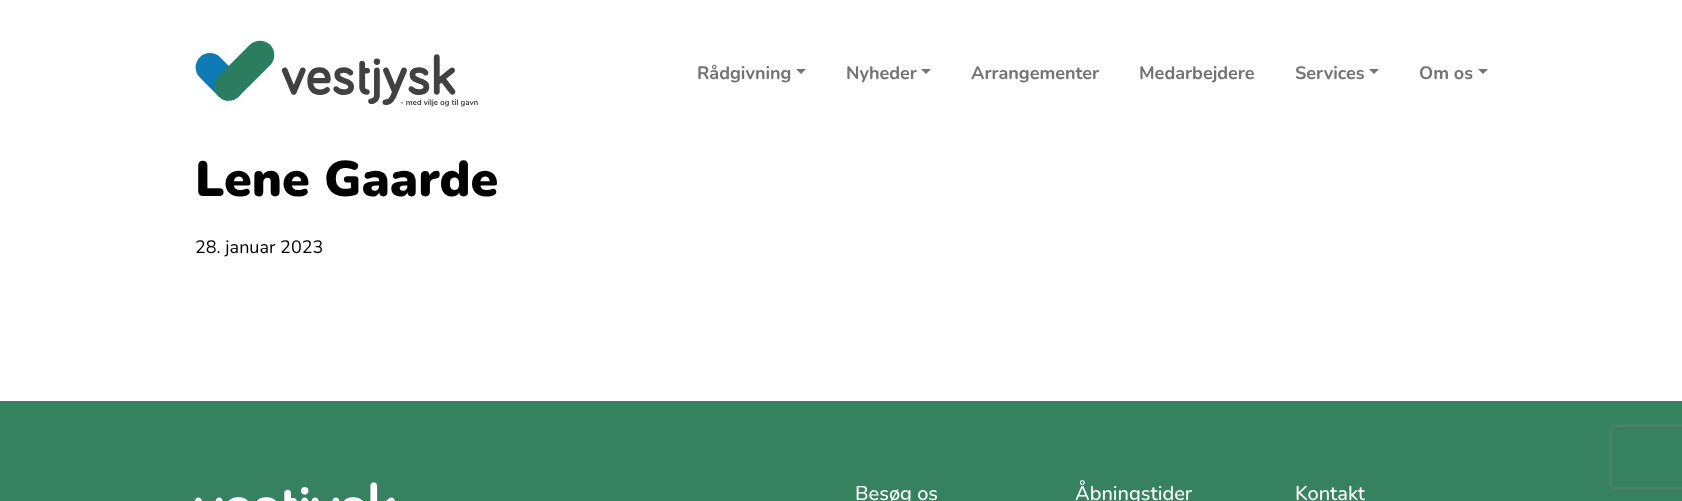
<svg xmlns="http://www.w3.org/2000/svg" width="1682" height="501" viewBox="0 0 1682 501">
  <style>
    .t1 { font: bold 18px Nunito; fill: #737373; }
    .t2 { font: 900 50px Nunito; fill: #000; }
    .t3 { font: 18px Nunito; fill: #000; }
    .t4 { font: 500 20px Nunito; fill: #fff; }
  </style>
  <defs>
    <clipPath id="clip1"><path d="M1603 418H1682V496H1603ZM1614 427H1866C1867 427 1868 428 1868 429V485C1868 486 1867 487 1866 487H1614C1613 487 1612 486 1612 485V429C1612 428 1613 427 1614 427Z" clip-rule="evenodd"/></clipPath>
  </defs>
  <rect width="100%" height="100%" fill="#fff"/>
  <image x="195" y="40" width="283" height="67" href="images/1.png"/>
  <text x="697" y="79" class="t1">Rådgivning</text>
  <path d="M796 69H806L801 74Z" fill="#737373"/>
  <text x="846" y="79" class="t1">Nyheder</text>
  <path d="M921 69H931L926 74Z" fill="#737373"/>
  <text x="971" y="79" class="t1">Arrangementer</text>
  <text x="1139" y="79" class="t1">Medarbejdere</text>
  <text x="1295" y="79" class="t1">Services</text>
  <path d="M1369 69H1379L1374 74Z" fill="#737373"/>
  <text x="1419" y="79" class="t1">Om os</text>
  <path d="M1478 69H1488L1483 74Z" fill="#737373"/>
  <text x="195" y="196" class="t2">Lene Gaarde</text>
  <text x="195" y="253" class="t3">28. januar 2023</text>
  <rect x="0" y="401" width="1682" height="100" fill="#368260"/>
  <image x="195" y="482" width="200" height="19" href="images/2.png"/>
  <text x="855" y="500" class="t4">Besøg os</text>
  <text x="1075" y="500" class="t4">Åbningstider</text>
  <text x="1295" y="500" class="t4">Kontakt</text>
  <g clip-path="url(#clip1)">
    <rect x="1612" y="427" width="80" height="60" rx="2" fill="#808080" filter="blur(2.5px)"/>
  </g>
</svg>
